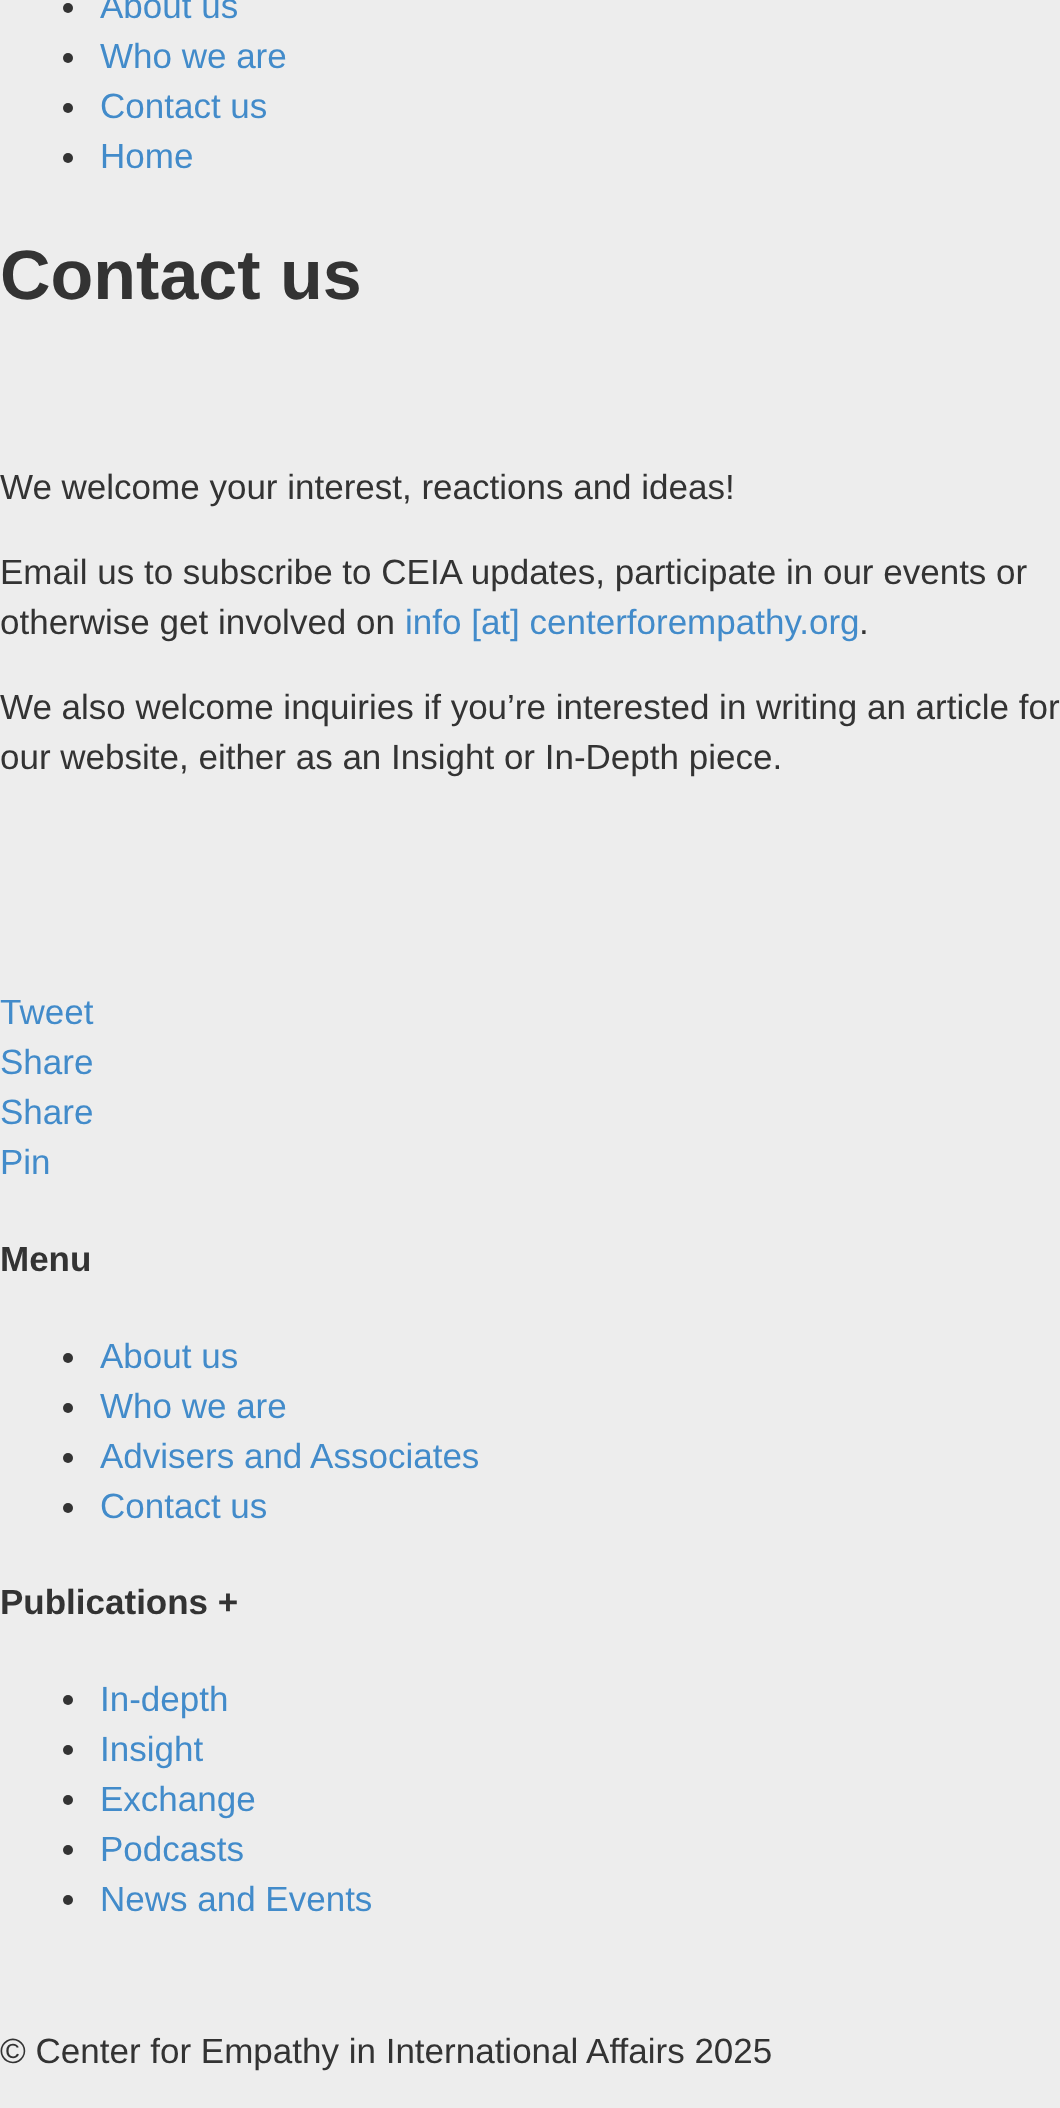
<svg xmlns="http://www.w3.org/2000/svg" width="1060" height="2108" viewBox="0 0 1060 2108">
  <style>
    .t1 { font: 35px Liberation Sans; fill: #428bca; }
    .t2 { font: bold 70px Liberation Sans; fill: #333; }
    .t3 { font: 35px Liberation Sans; fill: #333; }
    .t4 { font: bold 35px Liberation Sans; fill: #333; }
  </style>
  <rect width="100%" height="100%" fill="#ededed"/>
  <circle cx="68" cy="8" r="5" fill="#333"/>
  <text x="100" y="18" class="t1">About us</text>
  <circle cx="68" cy="58" r="5" fill="#333"/>
  <text x="100" y="68" class="t1">Who we are</text>
  <circle cx="68" cy="108" r="5" fill="#333"/>
  <text x="100" y="118" class="t1">Contact us</text>
  <circle cx="68" cy="158" r="5" fill="#333"/>
  <text x="100" y="168" class="t1">Home</text>
  <text x="0" y="299" class="t2">Contact us</text>
  <text x="0" y="499" class="t3">We welcome your interest, reactions and ideas!</text>
  <text x="0" y="584" class="t3">Email us to subscribe to CEIA updates, participate in our events or</text>
  <text x="0" y="634" class="t3">otherwise get involved on</text>
  <text x="405" y="634" class="t1">info [at] centerforempathy.org</text>
  <text x="859" y="634" class="t3">.</text>
  <text x="0" y="719" class="t3">We also welcome inquiries if you’re interested in writing an article for</text>
  <text x="0" y="769" class="t3">our website, either as an Insight or In-Depth piece.</text>
  <text x="0" y="1024" class="t1">Tweet</text>
  <text x="0" y="1074" class="t1">Share</text>
  <text x="0" y="1124" class="t1">Share</text>
  <text x="0" y="1174" class="t1">Pin</text>
  <text x="0" y="1271" class="t4">Menu</text>
  <circle cx="68" cy="1358" r="5" fill="#333"/>
  <text x="100" y="1368" class="t1">About us</text>
  <circle cx="68" cy="1408" r="5" fill="#333"/>
  <text x="100" y="1418" class="t1">Who we are</text>
  <circle cx="68" cy="1458" r="5" fill="#333"/>
  <text x="100" y="1468" class="t1">Advisers and Associates</text>
  <circle cx="68" cy="1508" r="5" fill="#333"/>
  <text x="100" y="1518" class="t1">Contact us</text>
  <text x="0" y="1614" class="t4">Publications +</text>
  <circle cx="68" cy="1700" r="5" fill="#333"/>
  <text x="100" y="1711" class="t1">In-depth</text>
  <circle cx="68" cy="1750" r="5" fill="#333"/>
  <text x="100" y="1761" class="t1">Insight</text>
  <circle cx="68" cy="1800" r="5" fill="#333"/>
  <text x="100" y="1811" class="t1">Exchange</text>
  <circle cx="68" cy="1850" r="5" fill="#333"/>
  <text x="100" y="1861" class="t1">Podcasts</text>
  <circle cx="68" cy="1900" r="5" fill="#333"/>
  <text x="100" y="1911" class="t1">News and Events</text>
  <text x="0" y="2063" class="t3">© Center for Empathy in International Affairs 2025</text>
</svg>
